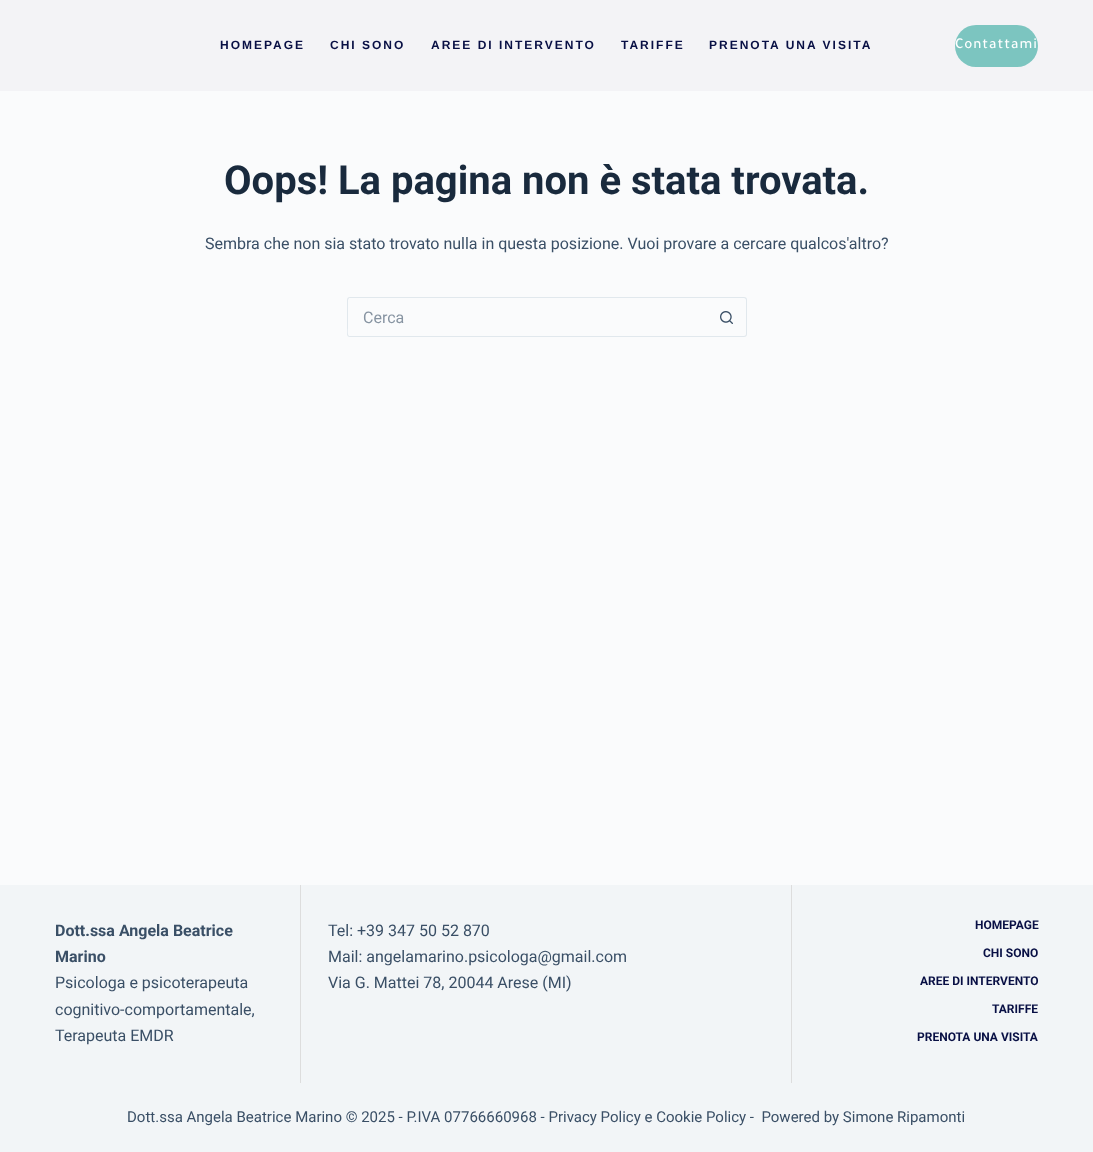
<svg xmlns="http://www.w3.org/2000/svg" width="1093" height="1152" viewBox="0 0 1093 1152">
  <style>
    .t1 { font: bold 12px Liberation Sans; letter-spacing: 2px; fill: #080f44; }
    .t2 { font: 500 15px Tajawal; letter-spacing: 1px; fill: #fff; }
    .t3 { font: bold 40px Roboto; fill: #192a3d; }
    .t4 { font: 16px Roboto; fill: #3a4f66; }
    .t5 { font: 16px Roboto; fill: #8794a2; }
    .t6 { font: bold 16px Roboto; fill: #3a4f66; }
    .t7 { font: bold 12px Roboto; fill: #080f44; }
    .t8 { font: 15px Roboto; fill: #3a4f66; }
  </style>
  <rect width="100%" height="100%" fill="#fafbfc"/>
  <rect x="0" y="0" width="1093" height="91" fill="#f3f3f6"/>
  <text x="220" y="49" class="t1">HOMEPAGE</text>
  <text x="330" y="49" class="t1">CHI SONO</text>
  <text x="431" y="49" class="t1">AREE DI INTERVENTO</text>
  <text x="621" y="49" class="t1">TARIFFE</text>
  <text x="709" y="49" class="t1">PRENOTA UNA VISITA</text>
  <rect x="955" y="25" width="83" height="42" rx="21" fill="#7cc5c0"/>
  <text x="955" y="48" class="t2">Contattami</text>
  <text x="224" y="194" class="t3">Oops! La pagina non è stata trovata.</text>
  <text x="205" y="249" class="t4">Sembra che non sia stato trovato nulla in questa posizione. Vuoi provare a cercare qualcos'altro?</text>
  <path d="M350 297H707V337H350C348 337 347 336 347 334V300C347 298 348 297 350 297ZM350 298H707V336H349C347 334 348 329 348 328V300L349 298Z" fill="#e1e8ed" fill-rule="evenodd"/>
  <text x="363" y="323" class="t5">Cerca</text>
  <path d="M707 297H744C746 297 747 298 747 300V334C747 336 746 337 744 337H707ZM707 298H744C745 298 746 299 746 300V334C746 335 745 336 744 336H707Z" fill="#e1e8ed" fill-rule="evenodd"/>
  <image x="720" y="311" width="13" height="13" href="images/1.png"/>
  <rect x="0" y="885" width="1093" height="267" fill="#f2f5f7"/>
  <text x="55" y="936" class="t6">Dott.ssa Angela Beatrice</text>
  <text x="55" y="962" class="t6">Marino</text>
  <text x="55" y="988" class="t4">Psicologa e psicoterapeuta</text>
  <text x="55" y="1015" class="t4">cognitivo-comportamentale,</text>
  <text x="55" y="1041" class="t4">Terapeuta EMDR</text>
  <rect x="300" y="885" width="1" height="198" fill="#ddd"/>
  <text x="328" y="936" class="t4">Tel: +39 347 50 52 870</text>
  <text x="328" y="962" class="t4">Mail: angelamarino.psicologa@gmail.com</text>
  <text x="328" y="988" class="t4">Via G. Mattei 78, 20044 Arese (MI)</text>
  <rect x="791" y="885" width="1" height="198" fill="#ddd"/>
  <text x="975" y="929" class="t7">HOMEPAGE</text>
  <text x="983" y="957" class="t7">CHI SONO</text>
  <text x="920" y="985" class="t7">AREE DI INTERVENTO</text>
  <text x="992" y="1013" class="t7">TARIFFE</text>
  <text x="917" y="1041" class="t7">PRENOTA UNA VISITA</text>
  <text x="127" y="1122" class="t8" xml:space="preserve">Dott.ssa Angela Beatrice Marino © 2025 - P.IVA 07766660968 - Privacy Policy e Cookie Policy -  Powered by Simone Ripamonti</text>
</svg>
